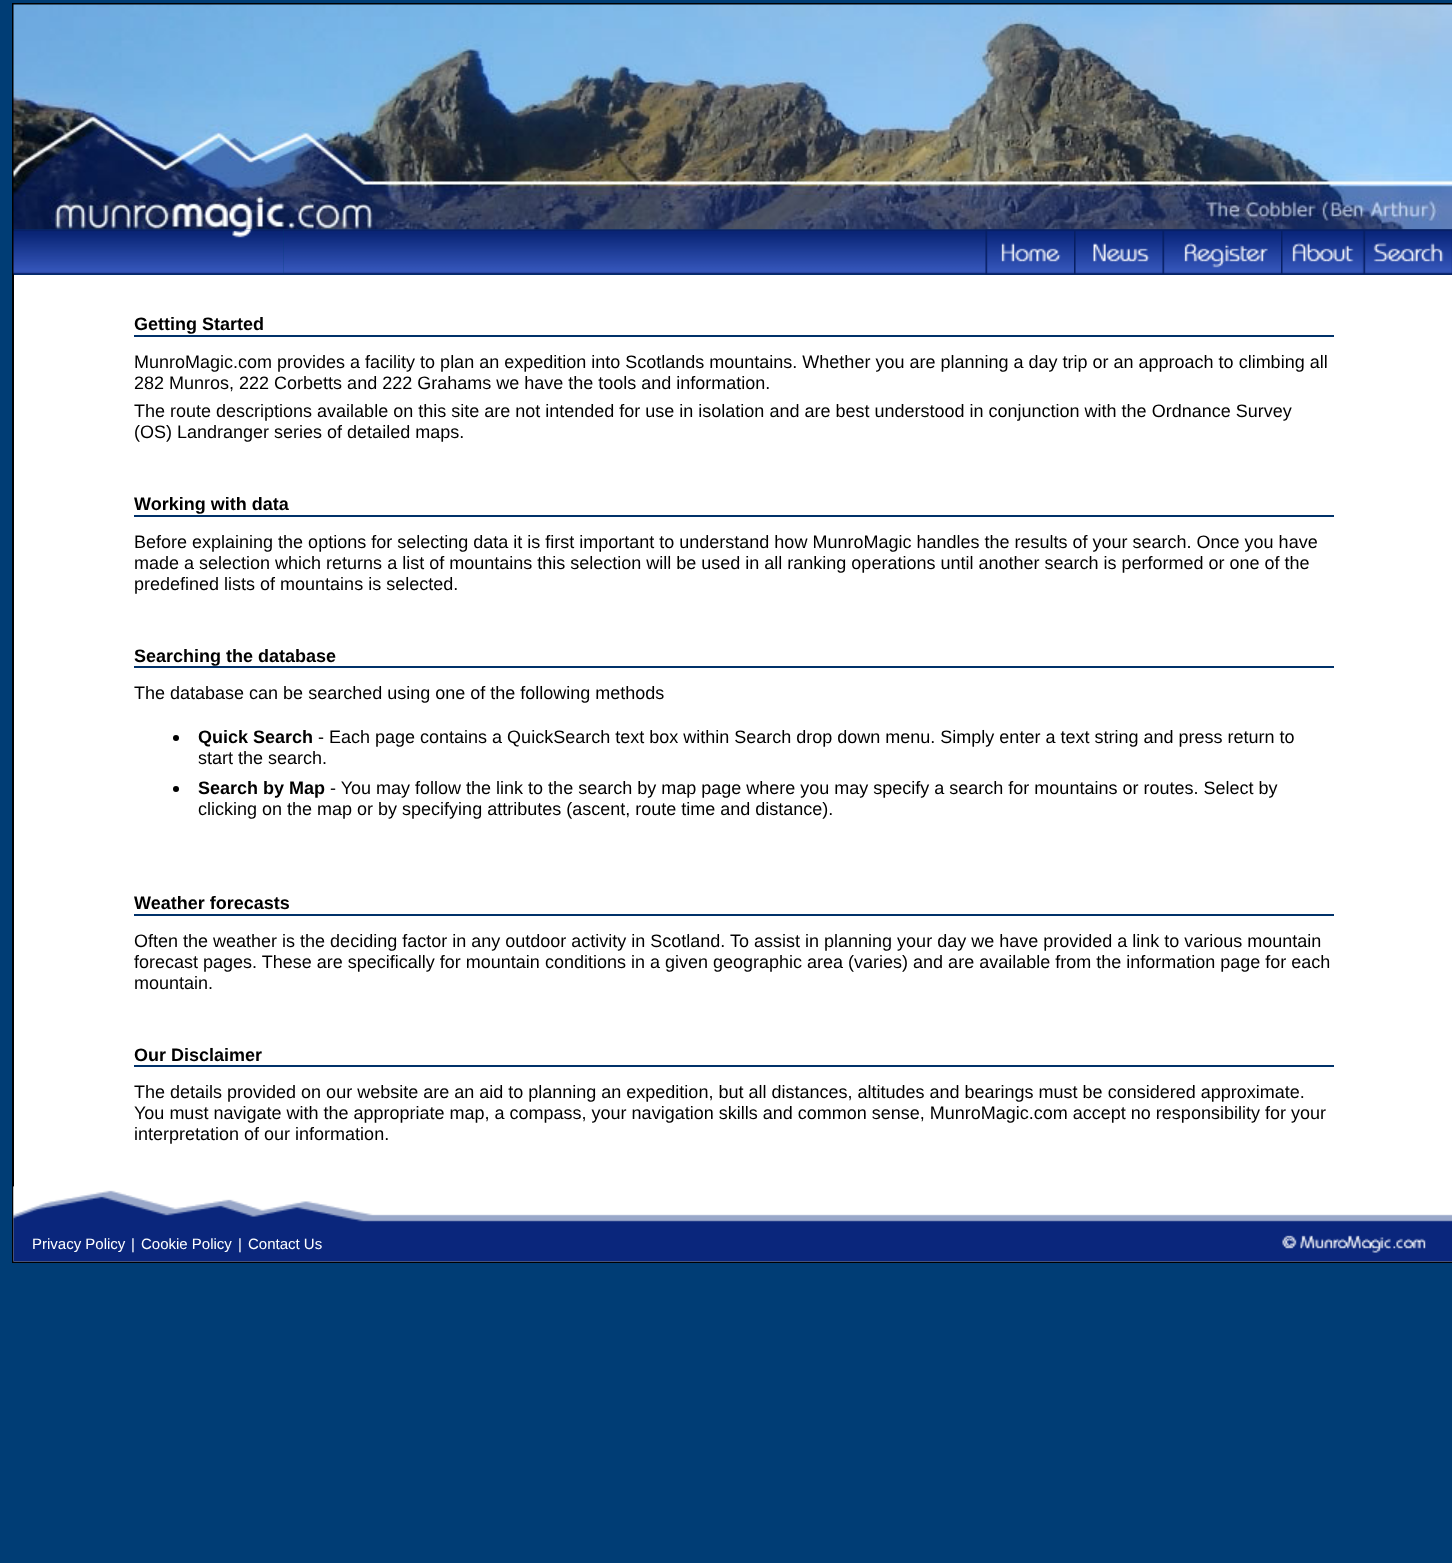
<svg xmlns="http://www.w3.org/2000/svg" width="1452" height="1563" viewBox="0 0 1452 1563">
  <style>
    .t1 { font: bold 18px Liberation Sans; fill: #000; }
    .t2 { font: 18px Liberation Sans; fill: #000; }
    .t3 { font: 15px Liberation Sans; fill: #fff; }
  </style>
  <rect width="100%" height="100%" fill="#003d75"/>
  <rect x="13" y="4" width="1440" height="1258" fill="none" stroke="#000" stroke-width="2"/>
  <image x="13" y="4" width="1439" height="226" href="images/1.png"/>
  <image x="283" y="229" width="1169" height="46" href="images/3.png"/>
  <image x="13" y="229" width="271" height="46" href="images/2.png"/>
  <image x="985" y="229" width="89" height="46" href="images/4.png"/>
  <image x="1074" y="229" width="89" height="46" href="images/5.png"/>
  <image x="1162" y="229" width="119" height="46" href="images/6.png"/>
  <image x="1281" y="229" width="83" height="46" href="images/7.png"/>
  <image x="1363" y="229" width="89" height="46" href="images/8.png"/>
  <rect x="14" y="275" width="1438" height="912" fill="#fff"/>
  <text x="134" y="330" class="t1">Getting Started</text>
  <rect x="134" y="335" width="1200" height="2" fill="#003169"/>
  <text x="134" y="368" class="t2">MunroMagic.com provides a facility to plan an expedition into Scotlands mountains. Whether you are planning a day trip or an approach to climbing all</text>
  <text x="134" y="389" class="t2">282 Munros, 222 Corbetts and 222 Grahams we have the tools and information.</text>
  <text x="134" y="417" class="t2">The route descriptions available on this site are not intended for use in isolation and are best understood in conjunction with the Ordnance Survey</text>
  <text x="134" y="438" class="t2">(OS) Landranger series of detailed maps.</text>
  <text x="134" y="510" class="t1">Working with data</text>
  <rect x="134" y="515" width="1200" height="2" fill="#003169"/>
  <text x="134" y="548" class="t2">Before explaining the options for selecting data it is first important to understand how MunroMagic handles the results of your search. Once you have</text>
  <text x="134" y="569" class="t2">made a selection which returns a list of mountains this selection will be used in all ranking operations until another search is performed or one of the</text>
  <text x="134" y="590" class="t2">predefined lists of mountains is selected.</text>
  <text x="134" y="662" class="t1">Searching the database</text>
  <rect x="134" y="666" width="1200" height="2" fill="#003169"/>
  <text x="134" y="699" class="t2">The database can be searched using one of the following methods</text>
  <circle cx="176" cy="738" r="3" fill="#000"/>
  <text x="198" y="743" class="t1">Quick Search</text>
  <text x="318" y="743" class="t2">- Each page contains a QuickSearch text box within Search drop down menu. Simply enter a text string and press return to</text>
  <text x="198" y="764" class="t2">start the search.</text>
  <circle cx="176" cy="789" r="3" fill="#000"/>
  <text x="198" y="794" class="t1">Search by Map</text>
  <text x="330" y="794" class="t2">- You may follow the link to the search by map page where you may specify a search for mountains or routes. Select by</text>
  <text x="198" y="815" class="t2">clicking on the map or by specifying attributes (ascent, route time and distance).</text>
  <text x="134" y="909" class="t1">Weather forecasts</text>
  <rect x="134" y="914" width="1200" height="2" fill="#003169"/>
  <text x="134" y="947" class="t2">Often the weather is the deciding factor in any outdoor activity in Scotland. To assist in planning your day we have provided a link to various mountain</text>
  <text x="134" y="968" class="t2">forecast pages. These are specifically for mountain conditions in a given geographic area (varies) and are available from the information page for each</text>
  <text x="134" y="989" class="t2">mountain.</text>
  <text x="134" y="1061" class="t1">Our Disclaimer</text>
  <rect x="134" y="1065" width="1200" height="2" fill="#003169"/>
  <text x="134" y="1098" class="t2">The details provided on our website are an aid to planning an expedition, but all distances, altitudes and bearings must be considered approximate.</text>
  <text x="134" y="1119" class="t2">You must navigate with the appropriate map, a compass, your navigation skills and common sense, MunroMagic.com accept no responsibility for your</text>
  <text x="134" y="1140" class="t2">interpretation of our information.</text>
  <image x="13" y="1186" width="1439" height="76" href="images/9.png"/>
  <text x="32" y="1249" class="t3">Privacy Policy</text>
  <text x="131" y="1249" class="t3">|</text>
  <text x="141" y="1249" class="t3">Cookie Policy</text>
  <text x="238" y="1249" class="t3">|</text>
  <text x="248" y="1249" class="t3">Contact Us</text>
  <image x="1282" y="1235" width="144" height="18" href="images/10.png"/>
</svg>
